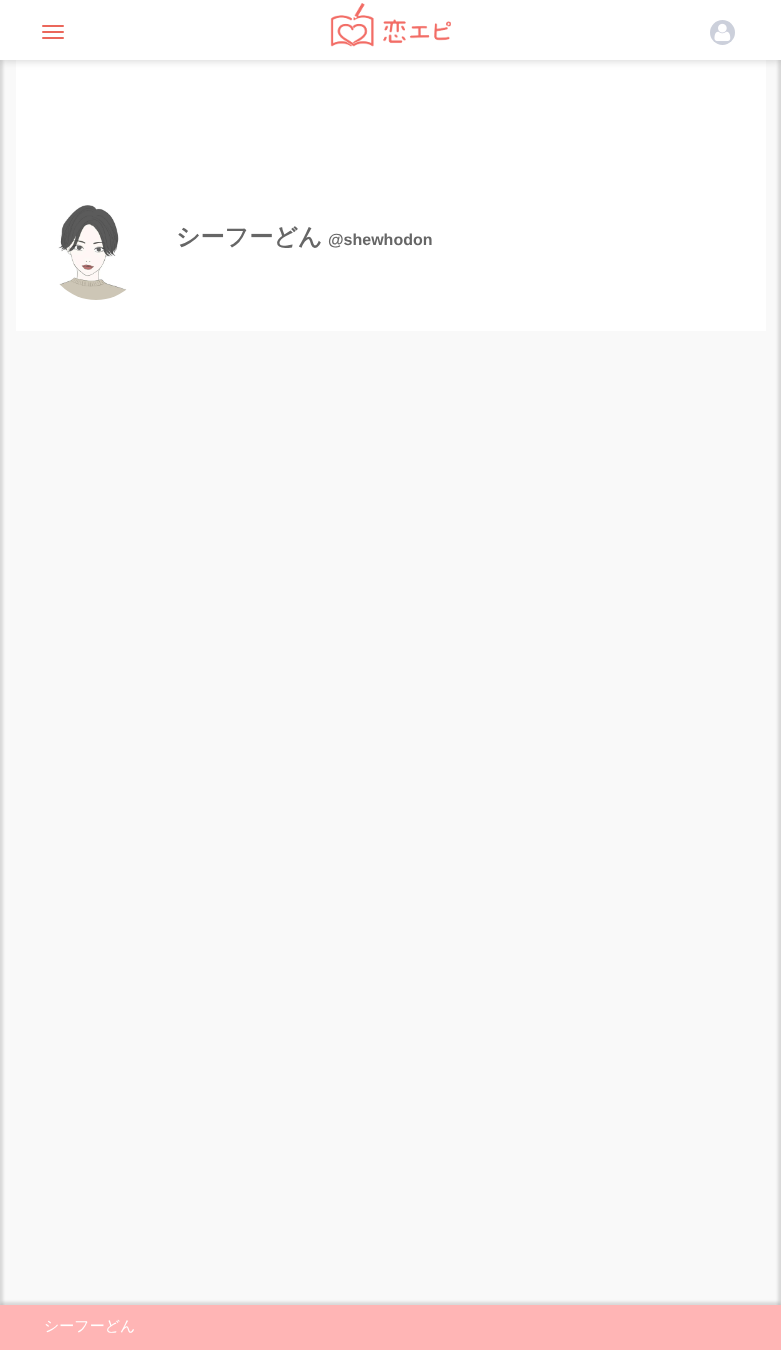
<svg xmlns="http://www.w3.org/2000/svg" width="781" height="1350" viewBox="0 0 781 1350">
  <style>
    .t1 { font: bold 24px WenQuanYi Zen Hei; fill: #666; }
    .t2 { font: bold 16px Liberation Sans; fill: #666; }
    .t3 { font: 500 15px WenQuanYi Zen Hei; fill: #fff; }
  </style>
  <rect width="100%" height="100%" fill="#f9f9f9"/>
  <rect x="-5" y="3" width="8" height="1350" fill="#00000021" filter="blur(1.5px)"/>
  <rect x="16" y="60" width="750" height="271" fill="#fff"/>
  <rect x="0" y="0" width="781" height="60" fill="#00000033" filter="blur(5px)"/>
  <rect x="778" y="3" width="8" height="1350" fill="#00000021" filter="blur(1.5px)"/>
  <rect x="0" y="0" width="781" height="60" fill="#fff"/>
  <rect x="42" y="25" width="22" height="2" rx="1" fill="#eb675b"/>
  <rect x="42" y="31" width="22" height="2" rx="1" fill="#eb675b"/>
  <rect x="42" y="37" width="22" height="2" rx="1" fill="#eb675b"/>
  <image x="330" y="3" width="121" height="44" href="images/1.png"/>
  <image x="710" y="20" width="25" height="25" href="images/2.png"/>
  <image x="58" y="205" width="69" height="95" href="images/3.png"/>
  <text x="176" y="245" class="t1">シーフーどん</text>
  <text x="328" y="245" class="t2">@shewhodon</text>
  <rect x="0" y="1302" width="781" height="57" rx="4" fill="#00000021" filter="blur(1.5px)"/>
  <rect x="0" y="1305" width="781" height="45" fill="#ffb5b5"/>
  <text x="44" y="1331" class="t3">シーフーどん</text>
</svg>
